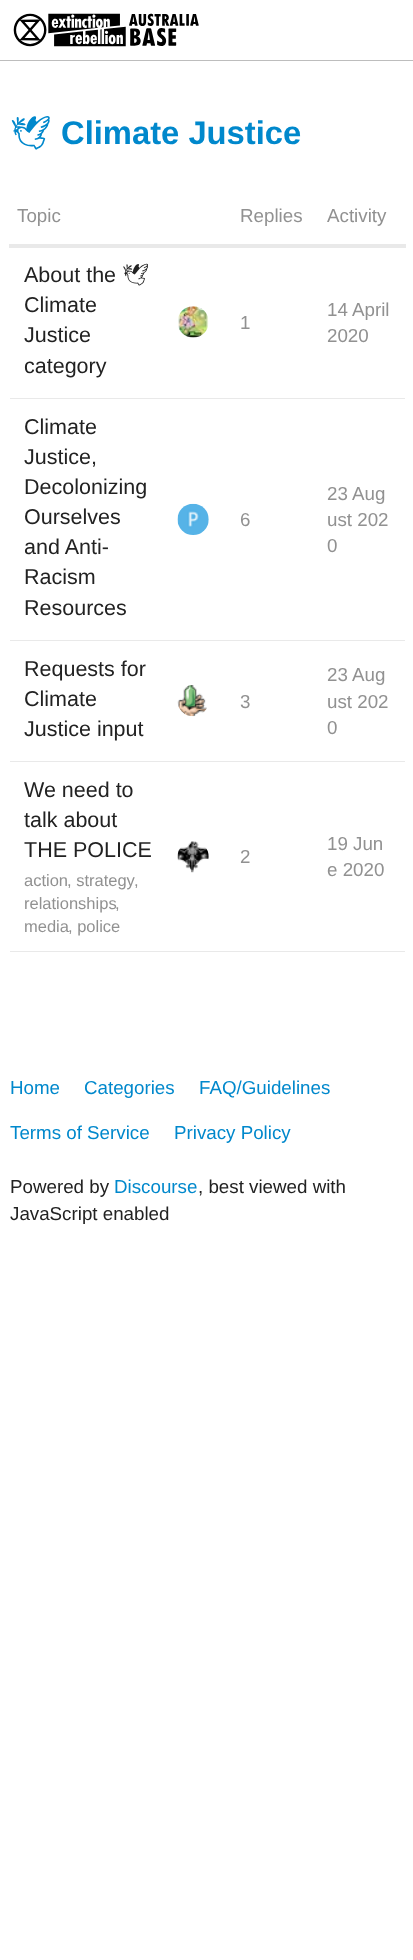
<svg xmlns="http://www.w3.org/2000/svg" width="413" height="1960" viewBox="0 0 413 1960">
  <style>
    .t1 { font: bold 32.75px Noto Emoji; fill: #08c; }
    .t2 { font: bold 32.75px Liberation Sans; fill: #08c; }
    .t3 { font: 18.75px Liberation Sans; fill: #919191; }
    .t4 { font: 21.5px Liberation Sans; fill: #222; }
    .t5 { font: 21.5px Noto Emoji; fill: #222; }
    .t6 { font: 16.5px Liberation Sans; fill: #919191; }
    .t7 { font: 18.75px Liberation Sans; fill: #08c; }
    .t8 { font: 18.75px Liberation Sans; fill: #222; }
  </style>
  <rect width="100%" height="100%" fill="#fff"/>
  <rect x="0" y="60" width="413" height="1" fill="#bdbdbd"/>
  <image x="13" y="13" width="186" height="34" href="images/1.png"/>
  <text x="10" y="144" class="t1">🕊</text>
  <text x="61" y="144" class="t2">Climate Justice</text>
  <text x="17" y="222" class="t3">Topic</text>
  <text x="240" y="222" class="t3">Replies</text>
  <text x="327" y="222" class="t3">Activity</text>
  <rect x="9" y="244" width="397" height="4" fill="#e9e9e9"/>
  <rect x="10" y="398" width="395" height="1" fill="#e9e9e9"/>
  <text x="24" y="282" class="t4">About the</text>
  <text x="122" y="282" class="t5">🕊</text>
  <text x="24" y="312" class="t4">Climate</text>
  <text x="24" y="342" class="t4">Justice</text>
  <text x="24" y="373" class="t4">category</text>
  <image x="178" y="306" width="31" height="32" href="images/2.png"/>
  <text x="240" y="329" class="t3">1</text>
  <text x="327" y="316" class="t3">14 April</text>
  <text x="327" y="342" class="t3">2020</text>
  <rect x="10" y="640" width="395" height="1" fill="#e9e9e9"/>
  <text x="24" y="434" class="t4">Climate</text>
  <text x="24" y="464" class="t4">Justice,</text>
  <text x="24" y="494" class="t4">Decolonizing</text>
  <text x="24" y="524" class="t4">Ourselves</text>
  <text x="24" y="554" class="t4">and Anti-</text>
  <text x="24" y="584" class="t4">Racism</text>
  <text x="24" y="615" class="t4">Resources</text>
  <image x="177" y="503" width="32" height="32" href="images/3.png"/>
  <text x="240" y="526" class="t3">6</text>
  <text x="327" y="500" class="t3">23 Aug</text>
  <text x="327" y="526" class="t3">ust 202</text>
  <text x="327" y="552" class="t3">0</text>
  <rect x="10" y="761" width="395" height="1" fill="#e9e9e9"/>
  <text x="24" y="676" class="t4">Requests for</text>
  <text x="24" y="706" class="t4">Climate</text>
  <text x="24" y="736" class="t4">Justice input</text>
  <image x="177" y="685" width="30" height="32" href="images/4.png"/>
  <text x="240" y="708" class="t3">3</text>
  <text x="327" y="681" class="t3">23 Aug</text>
  <text x="327" y="708" class="t3">ust 202</text>
  <text x="327" y="734" class="t3">0</text>
  <rect x="10" y="951" width="395" height="1" fill="#e9e9e9"/>
  <text x="24" y="797" class="t4">We need to</text>
  <text x="24" y="827" class="t4">talk about</text>
  <text x="24" y="857" class="t4">THE POLICE</text>
  <text x="24" y="886" class="t6">action</text>
  <text x="67" y="886" class="t6">, strategy</text>
  <text x="134" y="886" class="t6">,</text>
  <text x="24" y="909" class="t6">relationships</text>
  <text x="115" y="909" class="t6">,</text>
  <text x="24" y="932" class="t6">media</text>
  <text x="68" y="932" class="t6">, police</text>
  <image x="177" y="841" width="32" height="32" href="images/5.png"/>
  <text x="240" y="863" class="t3">2</text>
  <text x="327" y="850" class="t3">19 Jun</text>
  <text x="327" y="876" class="t3">e 2020</text>
  <text x="10" y="1094" class="t7">Home</text>
  <text x="84" y="1094" class="t7">Categories</text>
  <text x="199" y="1094" class="t7">FAQ/Guidelines</text>
  <text x="10" y="1139" class="t7">Terms of Service</text>
  <text x="174" y="1139" class="t7">Privacy Policy</text>
  <text x="10" y="1193" class="t8">Powered by</text>
  <text x="114" y="1193" class="t7">Discourse</text>
  <text x="198" y="1193" class="t8">, best viewed with</text>
  <text x="10" y="1220" class="t8">JavaScript enabled</text>
</svg>
